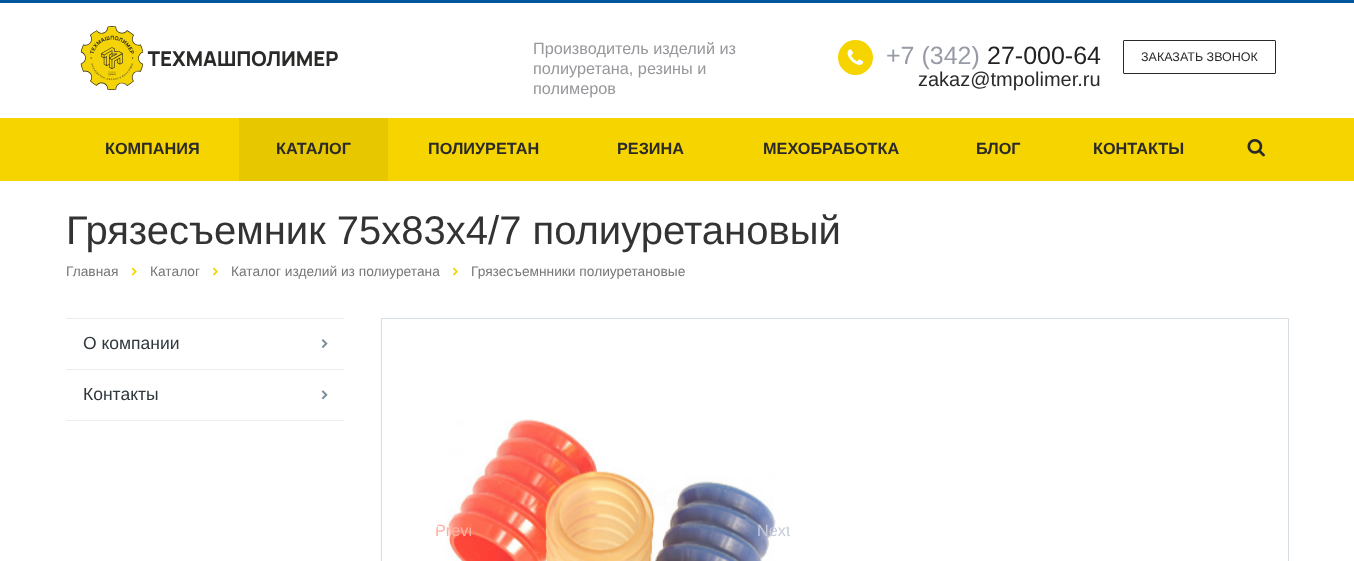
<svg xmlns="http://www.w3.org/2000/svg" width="1354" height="561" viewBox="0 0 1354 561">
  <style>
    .t1 { font: 16.25px Liberation Sans; fill: #95979a; }
    .t2 { font: 25px Liberation Sans; fill: #969ba5; }
    .t3 { font: 25px Liberation Sans; fill: #222; }
    .t4 { font: 20px Liberation Sans; fill: #2b2a29; }
    .t5 { font: 12.5px Liberation Sans; fill: #2b2a29; }
    .t6 { font: bold 16.25px Liberation Sans; fill: #2b2a29; }
    .t7 { font: 40px Liberation Sans; fill: #333; }
    .t8 { font: 13.75px Liberation Sans; fill: #777; }
    .t9 { font: 17.5px Liberation Sans; fill: #2f383d; }
    .t10 { font: 16.25px Liberation Sans; fill: #fdb0a3; }
    .t11 { font: 16.25px Liberation Sans; fill: #c6cbdc; }
  </style>
  <defs>
    <clipPath id="clip1"><rect x="435" y="516" width="38" height="38" rx="19"/></clipPath>
    <clipPath id="clip2"><rect x="753" y="516" width="37" height="38" rx="18.5"/></clipPath>
  </defs>
  <rect width="100%" height="100%" fill="#fff"/>
  <rect x="0" y="0" width="1354" height="3" fill="#00569c"/>
  <image x="80" y="26" width="258" height="64" href="images/1.png"/>
  <text x="533" y="54" class="t1">Производитель изделий из</text>
  <text x="533" y="74" class="t1">полиуретана, резины и</text>
  <text x="533" y="94" class="t1">полимеров</text>
  <circle cx="855.5" cy="57.5" r="17.5" fill="#f5d400"/>
  <image x="847" y="49" width="17" height="16" href="images/2.png"/>
  <text x="886" y="64" class="t2">+7 (342)</text>
  <text x="987" y="64" class="t3">27-000-64</text>
  <text x="918" y="86" class="t4">zakaz@tmpolimer.ru</text>
  <rect x="1123.5" y="40.5" width="152" height="33" rx="0.5" fill="none" stroke="#2b2a29"/>
  <text x="1141" y="61" class="t5">ЗАКАЗАТЬ ЗВОНОК</text>
  <rect x="0" y="118" width="1354" height="63" fill="#f5d400"/>
  <text x="105" y="154" class="t6">КОМПАНИЯ</text>
  <rect x="239" y="118" width="149" height="63" fill="#e6c700"/>
  <text x="276" y="154" class="t6">КАТАЛОГ</text>
  <text x="428" y="154" class="t6">ПОЛИУРЕТАН</text>
  <text x="617" y="154" class="t6">РЕЗИНА</text>
  <text x="763" y="154" class="t6">МЕХОБРАБОТКА</text>
  <text x="976" y="154" class="t6">БЛОГ</text>
  <text x="1093" y="154" class="t6">КОНТАКТЫ</text>
  <image x="1247" y="139" width="18" height="18" href="images/3.png"/>
  <text x="66" y="244" class="t7">Грязесъемник 75х83х4/7 полиуретановый</text>
  <text x="66" y="276" class="t8">Главная</text>
  <image x="131" y="267" width="6" height="9" href="images/4.png"/>
  <text x="150" y="276" class="t8">Каталог</text>
  <image x="213" y="267" width="5" height="9" href="images/5.png"/>
  <text x="231" y="276" class="t8">Каталог изделий из полиуретана</text>
  <image x="453" y="267" width="5" height="9" href="images/5.png"/>
  <text x="471" y="276" class="t8">Грязесъемнники полиуретановые</text>
  <rect x="66" y="420" width="278" height="1" fill="#ebeef1"/>
  <rect x="66" y="318" width="278" height="1" fill="#ebeef1"/>
  <text x="83" y="349" class="t9">О компании</text>
  <image x="321" y="339" width="7" height="9" href="images/6.png"/>
  <rect x="66" y="369" width="278" height="1" fill="#ebeef1"/>
  <text x="83" y="400" class="t9">Контакты</text>
  <image x="321" y="390" width="7" height="10" href="images/7.png"/>
  <rect x="381.5" y="318.5" width="907" height="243" fill="none" stroke="#d7dee3"/>
  <image x="445" y="419" width="331" height="142" href="images/8.png"/>
  <g clip-path="url(#clip1)">
    <text x="435" y="536" class="t10">Previ</text>
  </g>
  <g clip-path="url(#clip2)">
    <text x="757" y="536" class="t11">Next</text>
  </g>
</svg>
